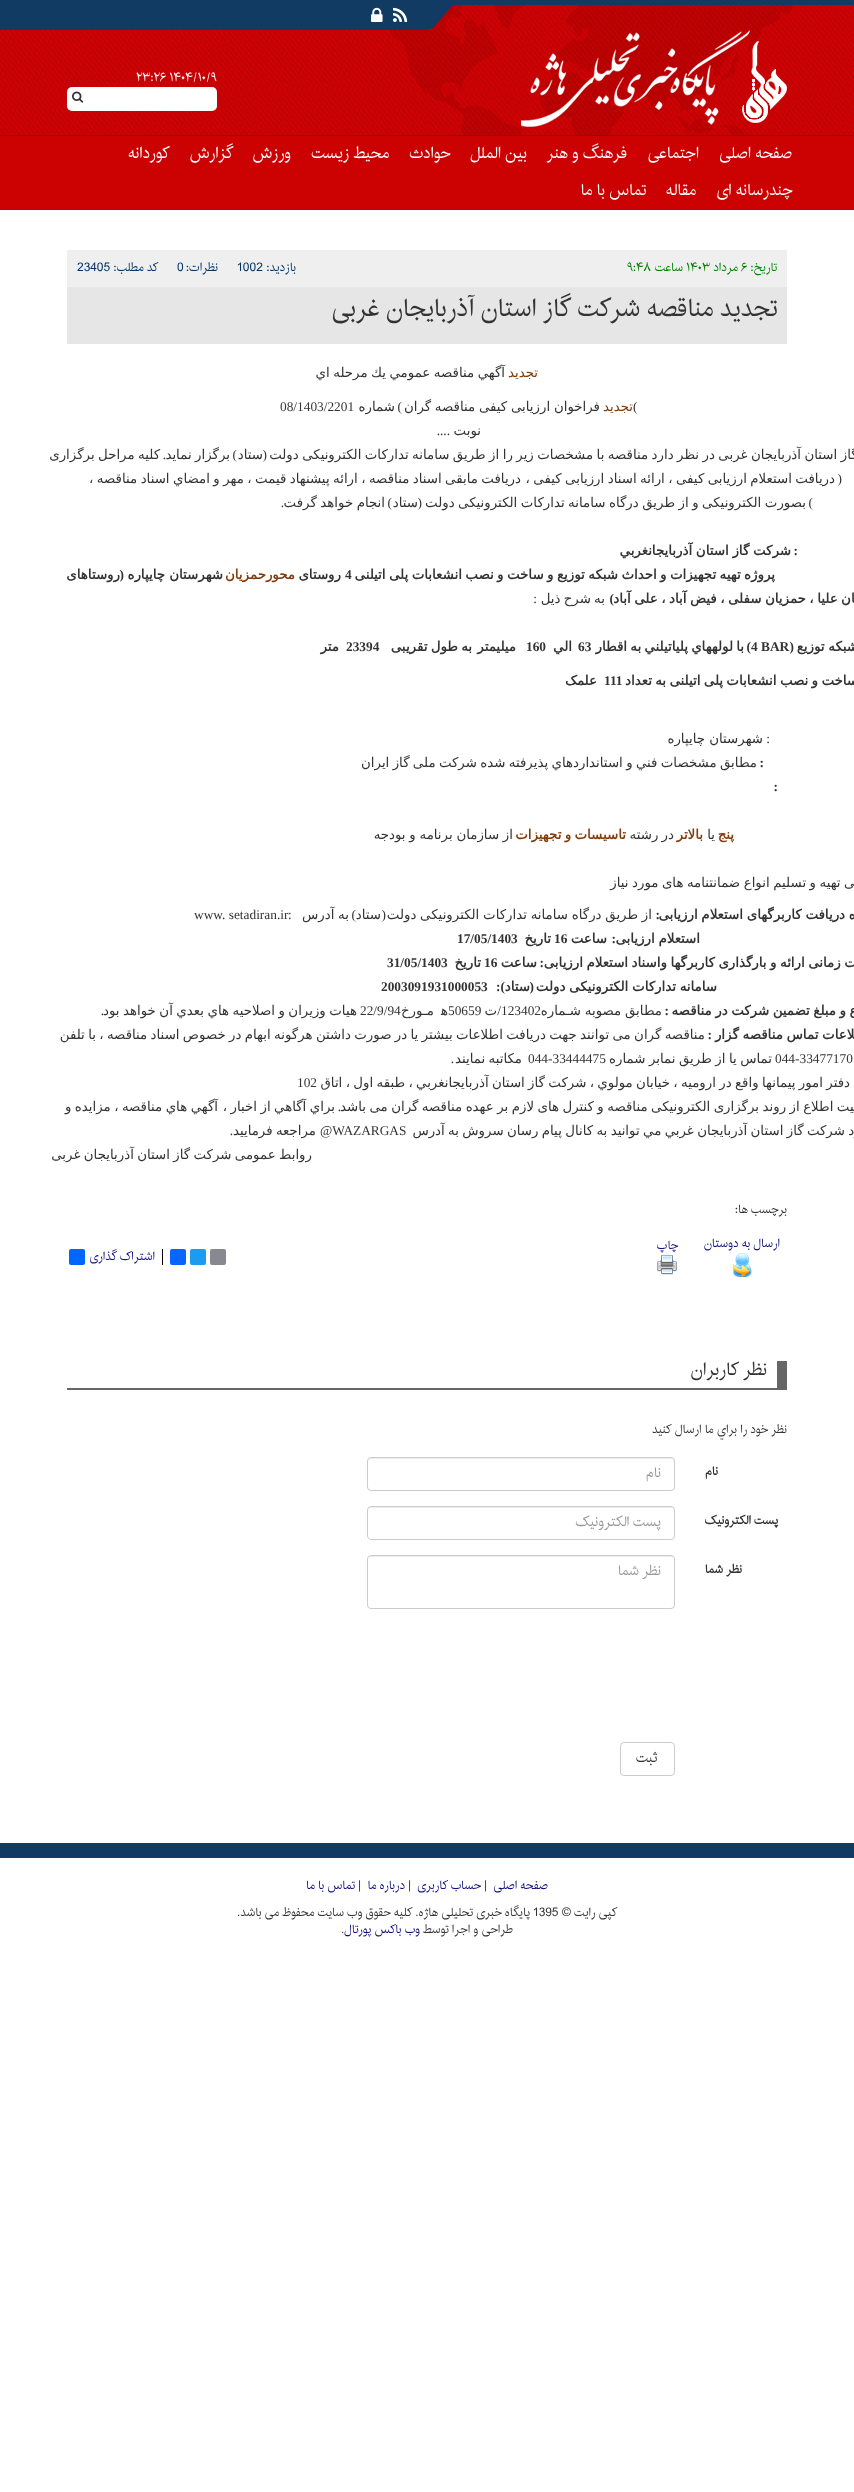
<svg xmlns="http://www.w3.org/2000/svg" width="854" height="2492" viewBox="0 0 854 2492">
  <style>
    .t1 { font: 12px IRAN; fill: #fff; }
    .t2 { font: 16px IRAN; direction: rtl; fill: #fff; }
    .t3 { font: 12px IRAN; direction: rtl; fill: #008000; }
    .t4 { font: 12px IRAN; fill: #008000; }
    .t5 { font: 12px IRAN; direction: rtl; fill: #036; }
    .t6 { font: 12px IRAN; fill: #036; }
    .t7 { font: 25px IRAN; direction: rtl; fill: #333; }
    .t8 { font: 13.35px DejaVu Sans; direction: rtl; fill: #833c0b; }
    .t9 { font: 13.35px DejaVu Sans; direction: rtl; fill: #333; }
    .t10 { font: 13.35px Liberation Serif; fill: #333; }
    .t11 { font: 13.35px Liberation Serif; direction: rtl; fill: #333; }
    .t12 { font: bold 13.35px Liberation Serif; direction: rtl; fill: #333; }
    .t13 { font: bold 13.35px DejaVu Sans; direction: rtl; fill: #333; }
    .t14 { font: bold 13.35px Liberation Serif; fill: #333; }
    .t15 { font: bold 13.35px DejaVu Sans; direction: rtl; fill: #833c0b; }
    .t16 { font: 12px IRAN; direction: rtl; fill: #333; }
    .t17 { font: 12px IRAN; direction: rtl; fill: #0e0f79; }
    .t18 { font: 18px IRAN; direction: rtl; fill: #333; }
    .t19 { font: bold 12px IRAN; direction: rtl; fill: #333; }
    .t20 { font: 14px IRAN; direction: rtl; fill: #999; }
    .t21 { font: 14px IRAN; direction: rtl; fill: #333; }
    .t22 { font: 12px IRAN; fill: #333; }
  </style>
  <rect width="100%" height="100%" fill="#fff"/>
  <image x="0" y="5" width="854" height="130" href="images/1.png"/>
  <rect x="0" y="0" width="854" height="5" fill="#113b63"/>
  <rect x="0" y="135" width="854" height="1" fill="#970a0b"/>
  <image x="390" y="5" width="403" height="130" href="images/2.png"/>
  <image x="427" y="5" width="26" height="25" href="images/3.png"/>
  <rect x="0" y="5" width="427" height="25" fill="#113b63"/>
  <image x="393" y="7" width="15" height="15" href="images/4.png"/>
  <image x="371" y="7" width="12" height="15" href="images/5.png"/>
  <image x="521" y="30" width="266" height="97" href="images/6.png"/>
  <text x="136" y="81" class="t1">۲۳:۲۶ ۱۴۰۴/۱۰/۹</text>
  <rect x="67" y="87" width="150" height="24" rx="5" fill="#fff"/>
  <image x="72" y="91" width="12" height="12" href="images/7.png"/>
  <rect x="0" y="136" width="854" height="74" fill="#cc0102"/>
  <text x="792" y="158" class="t2">صفحه اصلی</text>
  <text x="699" y="158" class="t2">اجتماعی</text>
  <text x="627" y="158" class="t2">فرهنگ و هنر</text>
  <text x="527" y="158" class="t2">بین الملل</text>
  <text x="450" y="158" class="t2">حوادث</text>
  <text x="389" y="158" class="t2">محیط زیست</text>
  <text x="291" y="158" class="t2">ورزش</text>
  <text x="233" y="158" class="t2">گزارش</text>
  <text x="169" y="158" class="t2">کوردانه</text>
  <text x="792" y="195" class="t2">چندرسانه ای</text>
  <text x="696" y="195" class="t2">مقاله</text>
  <text x="646" y="195" class="t2">تماس با ما</text>
  <rect x="67" y="250" width="720" height="37" fill="#efefef"/>
  <text x="777" y="271" class="t3">تاريخ:</text>
  <text x="741" y="271" class="t4">۶</text>
  <text x="738" y="271" class="t3">مرداد</text>
  <text x="686" y="271" class="t4">۱۴۰۳</text>
  <text x="683" y="271" class="t3">ساعت</text>
  <text x="627" y="271" class="t4">۹:۴۸</text>
  <text x="296" y="271" class="t5">بازدید:</text>
  <text x="237" y="271" class="t6">1002</text>
  <text x="218" y="271" class="t5">نظرات:</text>
  <text x="177" y="271" class="t6">0</text>
  <text x="158" y="271" class="t5">کد مطلب:</text>
  <text x="77" y="271" class="t6">23405</text>
  <rect x="67" y="287" width="720" height="57" fill="#e6e6e6"/>
  <text x="777" y="316" class="t7">تجدید مناقصه شرکت گاز استان آذربایجان غربی</text>
  <text x="538" y="377" class="t8">تجديد</text>
  <text x="505" y="377" word-spacing="-0.75" class="t9">آگهي مناقصه عمومي يك مرحله اي</text>
  <text x="633" y="411" class="t10">(</text>
  <text x="633" y="411" class="t8">تجديد</text>
  <text x="600" y="411" word-spacing="-0.5" class="t9">فراخوان ارزیابی کیفی مناقصه گران</text>
  <text x="402" y="411" class="t11">)</text>
  <text x="395" y="411" class="t9">شماره</text>
  <text x="280" y="411" class="t10">08/1403/2201</text>
  <text x="481" y="435" class="t9">نوبت</text>
  <text x="450" y="435" class="t11">....</text>
  <text x="899" y="459" word-spacing="-0.8" class="t9">شرکت گاز استان آذربایجان غربی در نظر دارد مناقصه با مشخصات زیر را از طریق سامانه تدارکات الکترونیکی دولت</text>
  <text x="267" y="459" class="t11">(</text>
  <text x="263" y="459" class="t9">ستاد</text>
  <text x="237" y="459" class="t11">)</text>
  <text x="230" y="459" word-spacing="-0.8" class="t9">برگزار نماید</text>
  <text x="166" y="459" class="t11">.</text>
  <text x="160" y="459" word-spacing="-0.8" class="t9">کلیه مراحل برگزاری</text>
  <text x="835" y="483" word-spacing="-0.8" class="t9">دریافت استعلام ارزیابی کیفی ، ارائه اسناد ارزیابی کیفی ،</text>
  <text x="521" y="483" word-spacing="-0.8" class="t9">دریافت مابقی اسناد مناقصه ، ارائه پیشنهاد قیمت ، مهر و امضاي اسناد مناقصه ،</text>
  <text x="842" y="483" class="t11">(</text>
  <text x="806" y="507" word-spacing="-0.75" class="t9">بصورت الکترونیکی و از طریق درگاه سامانه تدارکات الکترونیکی دولت</text>
  <text x="422" y="507" class="t11">(</text>
  <text x="418" y="507" class="t9">ستاد</text>
  <text x="392" y="507" class="t11">)</text>
  <text x="385" y="507" word-spacing="-0.75" class="t9">انجام خواهد گرفت</text>
  <text x="813" y="507" class="t11">)</text>
  <text x="284" y="507" class="t11">.</text>
  <text x="798" y="555" class="t12">:</text>
  <text x="791" y="555" word-spacing="-0.5" class="t13">شركت گاز استان آذربايجانغربي</text>
  <text x="775" y="579" word-spacing="-0.8" class="t13">پروژه تهیه تجهیزات و احداث شبکه توزیع و ساخت و نصب انشعابات پلی اتیلنی</text>
  <text x="345" y="579" class="t14">4</text>
  <text x="341" y="579" class="t13">روستای</text>
  <text x="295" y="579" class="t15">محورحمزیان</text>
  <text x="223" y="579" class="t13">شهرستان چایپاره</text>
  <text x="124" y="579" class="t12">(</text>
  <text x="120" y="579" class="t13">روستاهای</text>
  <text x="882" y="603" word-spacing="-0.75" class="t13">حمزیان علیا ، حمزیان سفلی ، فیض آباد ، علی آباد</text>
  <text x="614" y="603" class="t12">)</text>
  <text x="605" y="603" word-spacing="-1" class="t9">به شرح ذيل</text>
  <text x="537" y="603" class="t11">:</text>
  <text x="858" y="651" word-spacing="-0.5" class="t13">شبكه توزيع</text>
  <text x="794" y="651" class="t12">(</text>
  <text x="761" y="651" class="t14">BAR</text>
  <text x="751" y="651" class="t14">4</text>
  <text x="751" y="651" class="t12">)</text>
  <text x="744" y="651" word-spacing="-1" class="t13">با لولههاي پلياتيلني به اقطار</text>
  <text x="578" y="651" class="t14">63</text>
  <text x="572" y="651" class="t13">الي</text>
  <text x="526" y="651" class="t14">160</text>
  <text x="516" y="651" class="t13">ميليمتر</text>
  <text x="472" y="651" word-spacing="-1" class="t13">به طول تقریبی</text>
  <text x="346" y="651" class="t14">23394</text>
  <text x="339" y="651" class="t13">متر</text>
  <text x="858" y="685" word-spacing="-0.9" class="t13">ساخت و نصب انشعابات پلی اتیلنی به تعداد</text>
  <text x="604" y="685" class="t14">111</text>
  <text x="597" y="685" class="t13">علمک</text>
  <text x="770" y="743" class="t11">:</text>
  <text x="763" y="743" class="t9">شهرستان چايپاره</text>
  <text x="764" y="767" class="t12">:</text>
  <text x="757" y="767" word-spacing="-0.9" class="t9">مطابق مشخصات فني و استانداردهاي پذیرفته شده شرکت ملی گاز ایران</text>
  <text x="778" y="791" class="t12">:</text>
  <text x="734" y="839" class="t15">پنج</text>
  <text x="715" y="839" class="t9">یا</text>
  <text x="703" y="839" class="t15">بالاتر</text>
  <text x="674" y="839" word-spacing="-1" class="t9">در رشته</text>
  <text x="626" y="839" word-spacing="-0.9" class="t15">تاسیسات و تجهیزات</text>
  <text x="513" y="839" word-spacing="-0.5" class="t9">از سازمان برنامه و بودجه</text>
  <text x="881" y="887" word-spacing="-0.75" class="t9">توانائی تهیه و تسلیم انواع ضمانتنامه های مورد نیاز</text>
  <text x="875" y="919" word-spacing="-0.5" class="t13">نحوه دریافت کاربرگهای استعلام ارزیابی</text>
  <text x="660" y="919" class="t12">:</text>
  <text x="652" y="919" word-spacing="-0.5" class="t9">از طریق درگاه سامانه تدارکات الکترونیکی دولت</text>
  <text x="386" y="919" class="t11">(</text>
  <text x="381" y="919" class="t9">ستاد</text>
  <text x="356" y="919" class="t11">)</text>
  <text x="349" y="919" word-spacing="-0.5" class="t9">به آدرس</text>
  <text x="288" y="919" class="t10">:</text>
  <text x="194" y="919" class="t10">www. setadiran.ir</text>
  <text x="700" y="943" word-spacing="-0.5" class="t13">استعلام ارزیابی</text>
  <text x="616" y="943" class="t12">:</text>
  <text x="607" y="943" class="t13">ساعت</text>
  <text x="554" y="943" class="t14">16</text>
  <text x="551" y="943" class="t13">تاریخ</text>
  <text x="457" y="943" class="t14">17/05/1403</text>
  <text x="875" y="967" word-spacing="-0.75" class="t13">مهلت زمانی ارائه و بارگذاری کاربرگها واسناد استعلام ارزیابی</text>
  <text x="544" y="967" class="t12">:</text>
  <text x="537" y="967" class="t13">ساعت</text>
  <text x="484" y="967" class="t14">16</text>
  <text x="481" y="967" class="t13">تاریخ</text>
  <text x="387" y="967" class="t14">31/05/1403</text>
  <text x="717" y="991" word-spacing="-0.5" class="t13">سامانه تدارکات الکترونیکی دولت</text>
  <text x="534" y="991" class="t12">(</text>
  <text x="530" y="991" class="t13">ستاد</text>
  <text x="505" y="991" class="t12">):</text>
  <text x="381" y="991" class="t14">2003091931000053</text>
  <text x="868" y="1015" word-spacing="-0.75" class="t13">نوع و مبلغ تضمين شركت در مناقصه</text>
  <text x="669" y="1015" class="t12">:</text>
  <text x="662" y="1015" word-spacing="-0.5" class="t9">مطابق مصوبه شـماره</text>
  <text x="501" y="1015" class="t10">123402</text>
  <text x="501" y="1015" class="t11">/</text>
  <text x="497" y="1015" class="t9">ت</text>
  <text x="448" y="1015" class="t10">50659</text>
  <text x="448" y="1015" class="t9">ﻫ</text>
  <text x="434" y="1015" class="t9">مـورخ</text>
  <text x="357" y="1015" word-spacing="-0.75" class="t9">هيات وزيران و اصلاحيه هاي بعدي آن خواهد بود</text>
  <text x="360" y="1015" class="t10">22/9/94</text>
  <text x="104" y="1015" class="t11">.</text>
  <text x="869" y="1039" word-spacing="-0.5" class="t13">اطلاعات تماس مناقصه گزار</text>
  <text x="712" y="1039" class="t12">:</text>
  <text x="705" y="1039" word-spacing="-0.9" class="t9">مناقصه گران می توانند جهت دریافت اطلاعات بیشتر یا در صورت داشتن هرگونه ابهام در خصوص اسناد مناقصه ، با تلفن</text>
  <text x="772" y="1063" word-spacing="-0.75" class="t9">تماس يا از طريق نمابر شماره</text>
  <text x="775" y="1063" class="t10">044-33477170</text>
  <text x="528" y="1063" class="t10">044-33444475</text>
  <text x="522" y="1063" word-spacing="-1" class="t9">مکاتبه نمایند</text>
  <text x="454" y="1063" class="t11">.</text>
  <text x="850" y="1087" word-spacing="-0.9" class="t9">دفتر امور پیمانها واقع در اروميه ، خيابان مولوي ، شركت گاز استان آذربايجانغربي ، طبقه اول ، اتاق</text>
  <text x="297" y="1087" class="t10">102</text>
  <text x="888" y="1111" word-spacing="-0.8" class="t9">مسئولیت اطلاع از روند برگزاری الکترونیکی مناقصه و کنترل های لازم بر عهده مناقصه گران می باشد</text>
  <text x="341" y="1111" class="t11">.</text>
  <text x="335" y="1111" word-spacing="-0.8" class="t9">براي آگاهي از اخبار ،</text>
  <text x="218" y="1111" word-spacing="-0.8" class="t9">آگهي هاي مناقصه ، مزايده و</text>
  <text x="889" y="1135" word-spacing="-0.9" class="t9">عملكرد شركت گاز استان آذربايجان غربي مي توانيد به كانال پيام رسان سروش به آدرس</text>
  <text x="320" y="1135" class="t10">@WAZARGAS</text>
  <text x="316" y="1135" word-spacing="-0.9" class="t9">مراجعه فرماييد</text>
  <text x="233" y="1135" class="t11">.</text>
  <text x="312" y="1159" word-spacing="-0.9" class="t9">روابط عمومی شرکت گاز استان آذربایجان غربی</text>
  <text x="787" y="1213" class="t16">برچسب ها:</text>
  <text x="780" y="1247" class="t17">ارسال به دوستان</text>
  <image x="732" y="1253" width="20" height="24" href="images/8.png"/>
  <text x="678" y="1249" class="t17">چاپ</text>
  <image x="657" y="1255" width="20" height="20" href="images/9.png"/>
  <rect x="210" y="1249" width="16" height="16" rx="2" fill="#888990"/>
  <rect x="190" y="1249" width="16" height="16" rx="2" fill="#1d9bf0"/>
  <rect x="170" y="1249" width="16" height="16" rx="2" fill="#0866ff"/>
  <rect x="162" y="1249" width="1" height="16" fill="#000"/>
  <text x="155" y="1260" class="t17">اشتراک گذاری</text>
  <rect x="69" y="1249" width="16" height="16" rx="2" fill="#0166ff"/>
  <rect x="777" y="1361" width="10" height="27" fill="#666"/>
  <rect x="67" y="1388" width="720" height="2" fill="#666"/>
  <text x="767" y="1375" class="t18">نظر کاربران</text>
  <text x="787" y="1433" class="t16">نظر خود را براي ما ارسال كنيد</text>
  <text x="718" y="1475" class="t19">نام</text>
  <path d="M371 1459H671C673 1459 674 1460 674 1462L673 1459L672 1458H371C369 1458 368 1460 368 1462C368 1460 369 1459 371 1459Z" fill="#ececec"/>
  <rect x="367.5" y="1457.5" width="307" height="33" rx="3.5" fill="none" stroke="#ccc"/>
  <text x="661" y="1477" class="t20">نام</text>
  <text x="778" y="1524" class="t19">پست الکترونیک</text>
  <path d="M371 1508H671C673 1508 674 1509 674 1511L673 1508L672 1507H371C369 1507 368 1509 368 1511C368 1509 369 1508 371 1508Z" fill="#ececec"/>
  <rect x="367.5" y="1506.5" width="307" height="33" rx="3.5" fill="none" stroke="#ccc"/>
  <text x="661" y="1526" class="t20">پست الکترونیک</text>
  <text x="742" y="1573" class="t19">نظر شما</text>
  <path d="M371 1557H671C673 1557 674 1558 674 1560L673 1557L672 1556H371C369 1556 368 1558 368 1560C368 1558 369 1557 371 1557Z" fill="#ececec"/>
  <rect x="367.5" y="1555.5" width="307" height="53" rx="3.5" fill="none" stroke="#ccc"/>
  <text x="661" y="1575" class="t20">نظر شما</text>
  <rect x="620.5" y="1742.5" width="54" height="33" rx="3.5" fill="none" stroke="#ccc"/>
  <text x="657" y="1762" class="t21">ثبت</text>
  <rect x="0" y="1843" width="854" height="15" fill="#113b63"/>
  <text x="548" y="1889" class="t17">صفحه اصلی</text>
  <text x="484" y="1889" class="t22">|</text>
  <text x="481" y="1889" class="t17">حساب کاربری</text>
  <text x="408" y="1889" class="t22">|</text>
  <text x="405" y="1889" class="t17">درباره ما</text>
  <text x="358" y="1889" class="t22">|</text>
  <text x="355" y="1889" class="t17">تماس با ما</text>
  <text x="617" y="1916" class="t16">کپی رایت ©</text>
  <text x="533" y="1916" class="t22">1395</text>
  <text x="530" y="1916" class="t16">پایگاه خبری تحلیلی هاژه. کلیه حقوق وب سایت محفوظ می باشد.</text>
  <text x="513" y="1933" class="t16">طراحی و اجرا توسط</text>
  <text x="420" y="1933" class="t17">وب باکس پورتال</text>
  <text x="341" y="1933" class="t22">.</text>
</svg>
